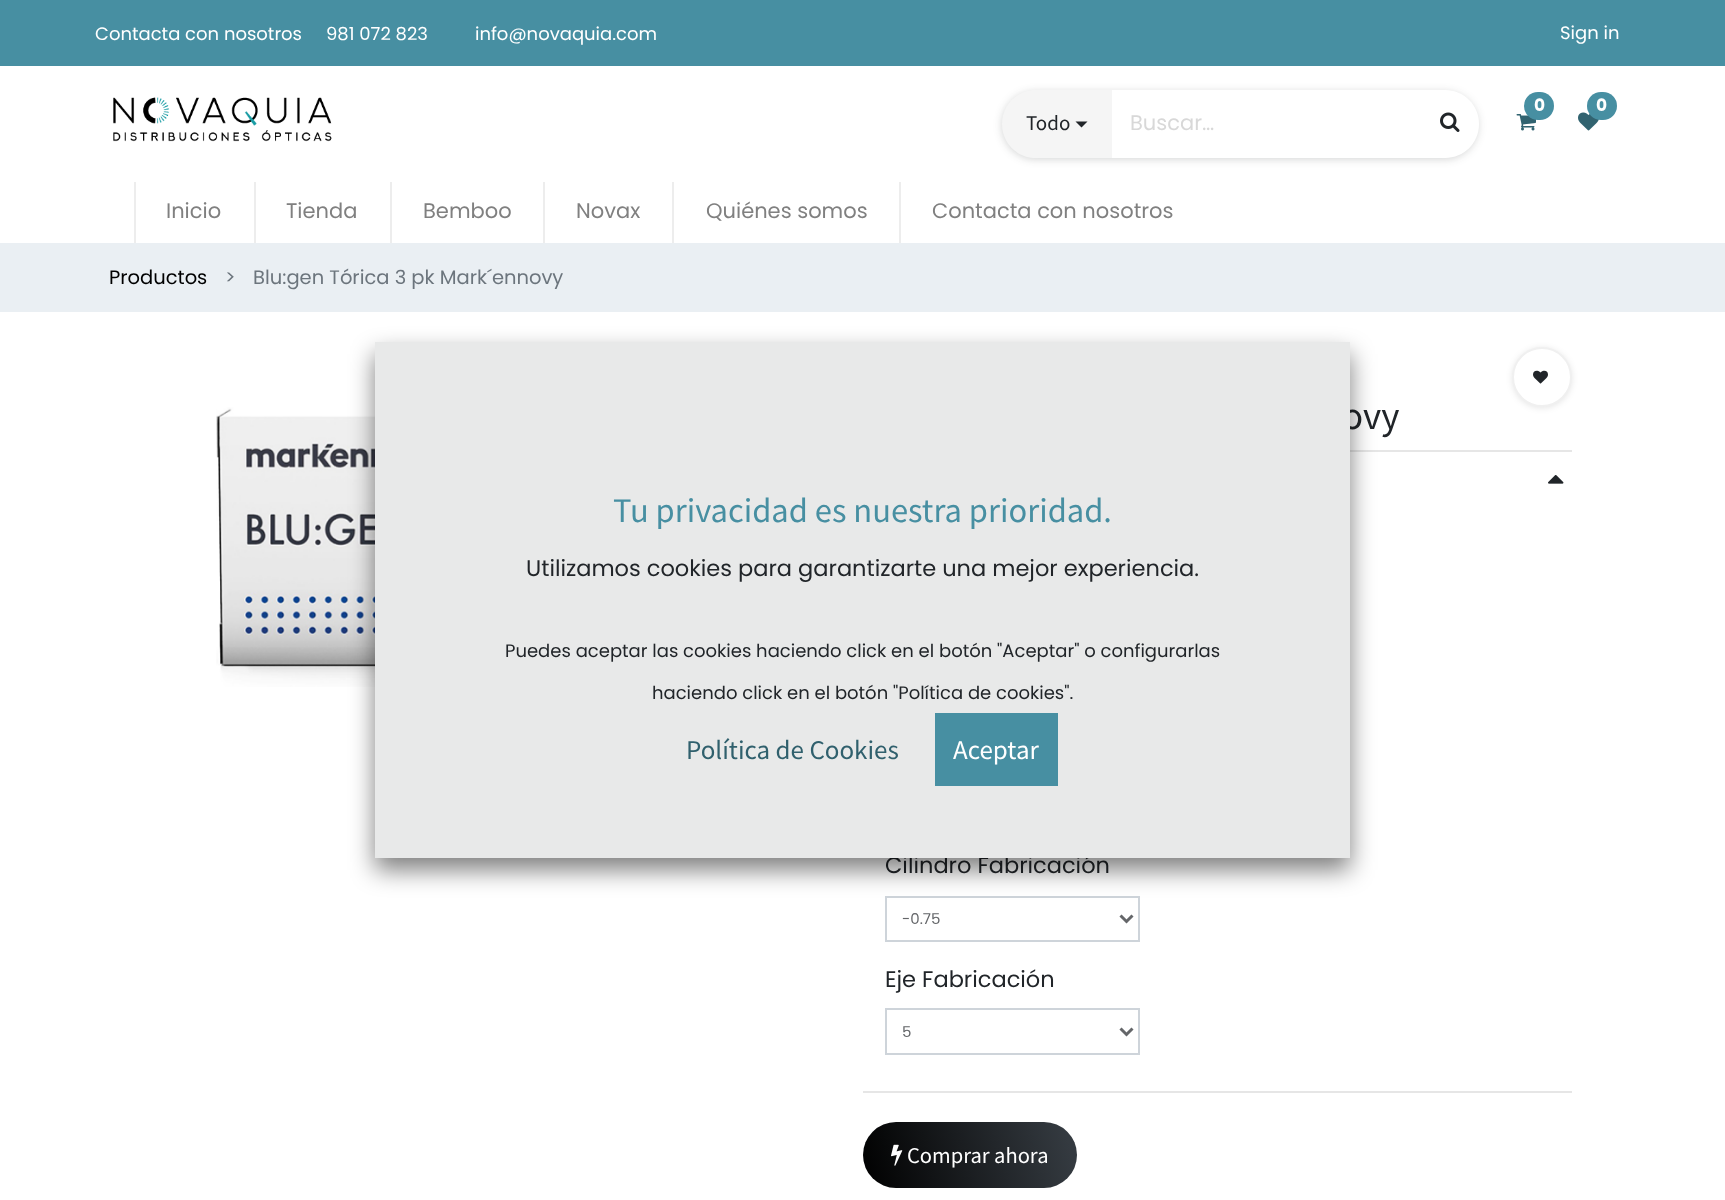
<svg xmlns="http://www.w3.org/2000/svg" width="1725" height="1200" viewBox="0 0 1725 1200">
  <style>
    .t1 { font: 18px Poppins; fill: #fff; }
    .t2 { font: bold 17px Poppins; fill: #fff; }
    .t3 { font: 21px Source Sans Pro; fill: #212529; }
    .t4 { font: 21px Poppins; fill: #d8d8d8; }
    .t5 { font: 21px Poppins; fill: #808080; }
    .t6 { font: 19.5px Poppins; fill: #000; }
    .t7 { font: 19.5px Poppins; fill: #6c757d; }
    .t8 { font: 39px Source Sans Pro; fill: #212529; }
    .t9 { font: 22.5px Poppins; fill: #212529; }
    .t10 { font: 15px Poppins; fill: #646669; }
    .t11 { font: 22.5px Source Sans Pro; fill: #fff; }
    .t12 { font: 34.5px Source Sans Pro; fill: #478fa2; }
    .t13 { font: 18px Poppins; fill: #212529; }
    .t14 { font: 27px Source Sans Pro; fill: #30606d; }
    .t15 { font: 27px Source Sans Pro; fill: #fff; }
  </style>
  <defs>
    <linearGradient id="g1" gradientUnits="userSpaceOnUse" x1="876" y1="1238" x2="1493" y2="1072"><stop offset="0" stop-color="#000"/><stop offset="0.33" stop-color="#343a40"/><stop offset="0.67" stop-color="#343a40"/><stop offset="1" stop-color="#000"/></linearGradient>
  </defs>
  <rect width="100%" height="100%" fill="#fff"/>
  <rect x="0" y="0" width="1725" height="66" fill="#478fa2"/>
  <text x="95" y="40" class="t1">Contacta con nosotros</text>
  <text x="326" y="40" class="t1">981 072 823</text>
  <text x="475" y="40" class="t1">info@novaquia.com</text>
  <text x="1560" y="39" class="t1">Sign in</text>
  <image x="113" y="97" width="219" height="45" href="images/1.png"/>
  <image x="1516" y="114" width="20" height="17" href="images/2.png"/>
  <rect x="1524" y="92" width="30" height="28" rx="14" fill="#478fa2"/>
  <text x="1534" y="111" class="t2">0</text>
  <image x="1578" y="112" width="21" height="19" href="images/3.png"/>
  <rect x="1587" y="92" width="30" height="28" rx="14" fill="#478fa2"/>
  <text x="1596" y="111" class="t2">0</text>
  <rect x="1002" y="92" width="476" height="67" rx="33.5" fill="#20212433" filter="blur(4px)"/>
  <path d="M1036 90H1112V158H1036C1017 158 1002 143 1002 124C1002 105 1017 90 1036 90Z" fill="#f5f5f5"/>
  <text x="1026" y="130" class="t3">Todo</text>
  <path d="M1075.5 121.5H1087.5L1081.5 127.5Z" fill="#212529"/>
  <path d="M1112 90H1445C1464 90 1479 105 1479 124C1479 143 1464 158 1445 158H1112Z" fill="#fff"/>
  <text x="1130" y="130" class="t4">Buscar…</text>
  <image x="1440" y="112" width="20" height="20" href="images/4.png"/>
  <rect x="134" y="182" width="2" height="61" fill="#ededed"/>
  <text x="166" y="218" class="t5">Inicio</text>
  <rect x="254" y="182" width="2" height="61" fill="#ededed"/>
  <text x="286" y="218" class="t5">Tienda</text>
  <rect x="390" y="182" width="2" height="61" fill="#ededed"/>
  <text x="423" y="218" class="t5">Bemboo</text>
  <rect x="543" y="182" width="2" height="61" fill="#ededed"/>
  <text x="576" y="218" class="t5">Novax</text>
  <rect x="672" y="182" width="2" height="61" fill="#ededed"/>
  <text x="706" y="218" class="t5">Quiénes somos</text>
  <rect x="899" y="182" width="2" height="61" fill="#ededed"/>
  <text x="932" y="218" class="t5">Contacta con nosotros</text>
  <rect x="0" y="243" width="1725" height="69" fill="#eaeff3"/>
  <text x="109" y="284" class="t6">Productos</text>
  <text x="225" y="284" class="t7">&gt;</text>
  <text x="253" y="284" class="t7">Blu:gen Tórica 3 pk Mark´ennovy</text>
  <image x="216" y="407" width="159" height="280" href="images/5.png"/>
  <rect x="1512" y="348" width="60" height="60" rx="30" fill="#0000001a" filter="blur(3px)"/>
  <circle cx="1542" cy="377" r="29" fill="#fff" stroke="#f0f0f0" stroke-width="2"/>
  <image x="1533" y="370" width="15" height="14" href="images/6.png"/>
  <text x="1342" y="429" class="t8">ovy</text>
  <rect x="1350" y="450" width="222" height="2" fill="#e6e6e6"/>
  <image x="1548" y="475" width="16" height="9" href="images/7.png"/>
  <text x="885" y="873" class="t9">Cilindro Fabricación</text>
  <rect x="886" y="897" width="253" height="44" fill="none" stroke="#ced4da" stroke-width="2"/>
  <path d="M1120.5 915.5L1126.5 921.5L1132.5 915.5" fill="none" stroke="#646669" stroke-width="3"/>
  <text x="902" y="924" class="t10">-0.75</text>
  <text x="885" y="987" class="t9">Eje Fabricación</text>
  <rect x="886" y="1009" width="253" height="45" fill="none" stroke="#ced4da" stroke-width="2"/>
  <path d="M1120.5 1028.5L1126.5 1034.5L1132.5 1028.5" fill="none" stroke="#646669" stroke-width="3"/>
  <text x="902" y="1037" class="t10">5</text>
  <rect x="863" y="1091" width="709" height="2" fill="#e6e6e6"/>
  <rect x="863" y="1122" width="214" height="66" rx="33" fill="url(#g1)"/>
  <image x="891" y="1144" width="12" height="22" href="images/8.png"/>
  <text x="907" y="1163" class="t11">Comprar ahora</text>
  <rect x="375" y="354" width="975" height="516" fill="#00000080" filter="blur(12px)"/>
  <rect x="375" y="342" width="975" height="516" fill="#e8e9e9"/>
  <text x="613" y="522" class="t12">Tu privacidad es nuestra prioridad.</text>
  <text x="526" y="576" class="t9">Utilizamos cookies para garantizarte una mejor experiencia.</text>
  <text x="505" y="657" class="t13">Puedes aceptar las cookies haciendo click en el botón "Aceptar" o configurarlas</text>
  <text x="652" y="699" class="t13">haciendo click en el botón "Política de cookies".</text>
  <text x="686" y="759" class="t14">Política de Cookies</text>
  <rect x="935" y="713" width="123" height="73" fill="#478fa2"/>
  <text x="953" y="759" class="t15">Aceptar</text>
</svg>
